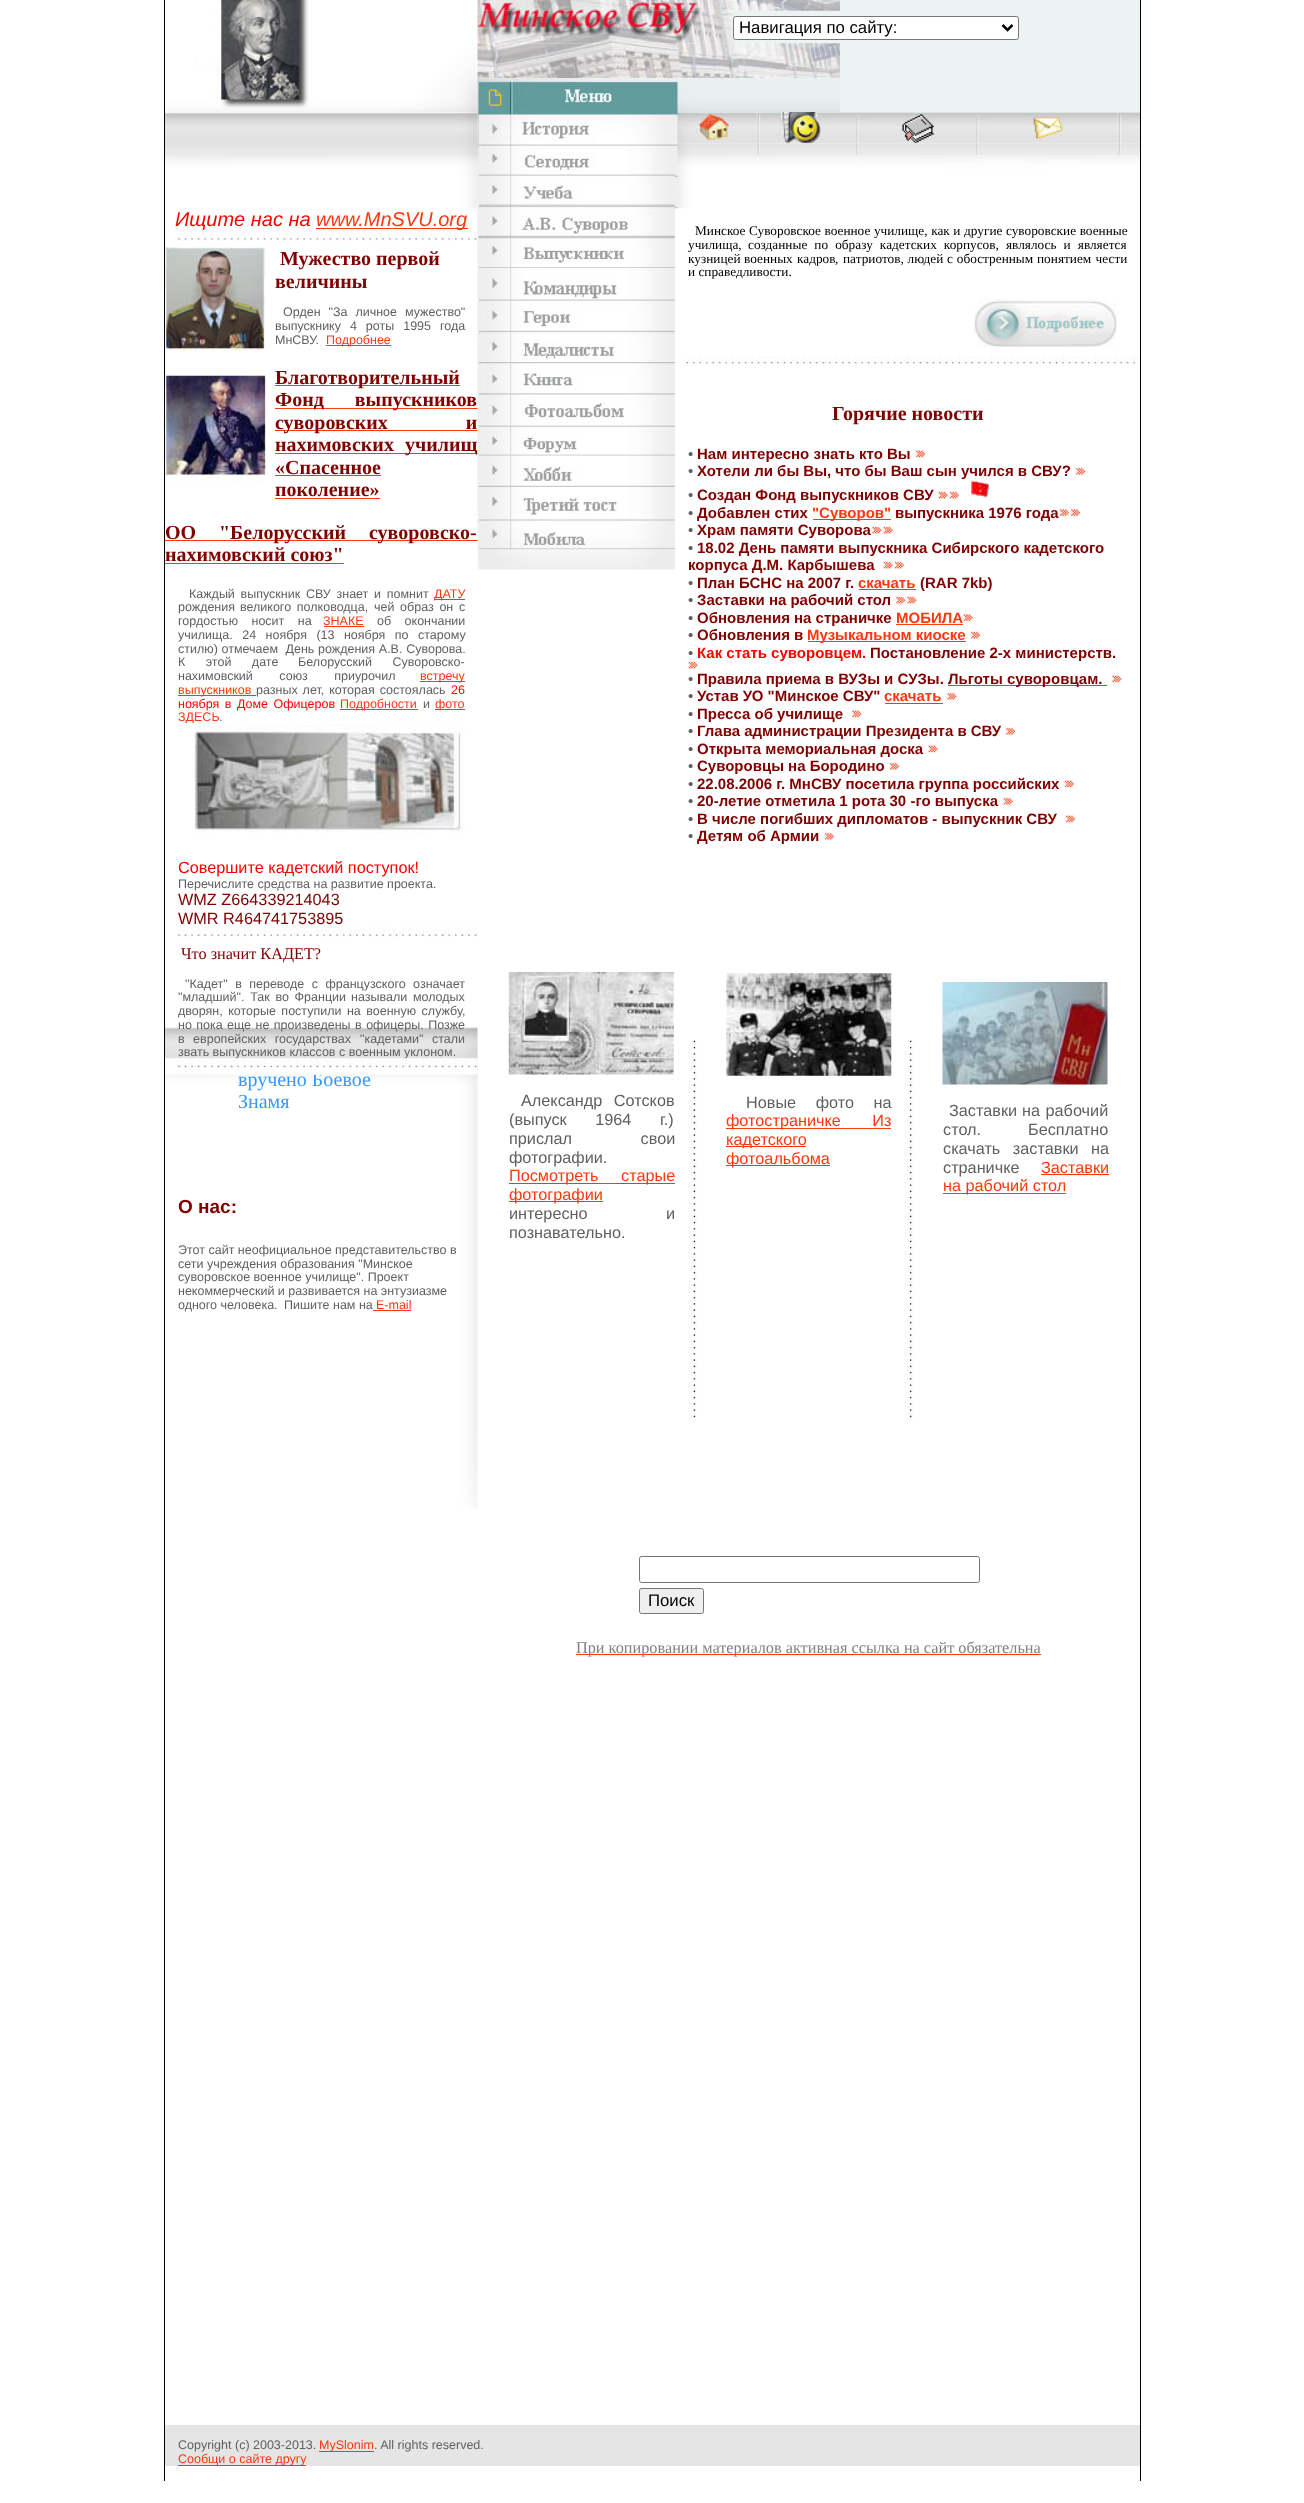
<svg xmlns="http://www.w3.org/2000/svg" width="1304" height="2503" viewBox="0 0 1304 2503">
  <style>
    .t1 { font: 16.75px Liberation Sans; fill: #000; }
    .t2 { font: italic 20px Liberation Sans; fill: #f00; }
    .t3 { font: italic 20px Liberation Sans; fill: #fe370f; }
    .t4 { font: bold 20px Liberation Serif; fill: #800000; }
    .t5 { font: 12.5px Liberation Sans; fill: #606060; }
    .t6 { font: 12.5px Liberation Sans; fill: #fe370f; }
    .t7 { font: 12.5px Liberation Sans; fill: #f00; }
    .t8 { font: 16.25px Liberation Sans; fill: #f00; }
    .t9 { font: 16.25px Liberation Sans; fill: #800000; }
    .t10 { font: 16.25px Liberation Serif; fill: #800000; }
    .t11 { font: 20px Liberation Serif; fill: #39f; }
    .t12 { font: bold 19px Liberation Sans; fill: #800000; }
    .t13 { font: 13.3px Liberation Serif; fill: #000; }
    .t14 { font: 15px Liberation Sans; fill: #606060; }
    .t15 { font: bold 15px Liberation Sans; fill: #800000; }
    .t16 { font: bold 15px Liberation Sans; fill: #fe370f; }
    .t17 { font: bold 15px Liberation Sans; fill: #f00; }
    .t18 { font: 16.25px Liberation Sans; fill: #606060; }
    .t19 { font: 16.25px Liberation Sans; fill: #fe370f; }
    .t20 { font: 16.25px Liberation Serif; fill: #808080; }
  </style>
  <defs>
    <clipPath id="clip1"><rect x="238" y="1075" width="167" height="100"/></clipPath>
  </defs>
  <rect width="100%" height="100%" fill="#fff"/>
  <rect x="164" y="0" width="1" height="2481" fill="#000"/>
  <image x="165" y="0" width="313" height="112" href="images/1.png"/>
  <rect x="478" y="0" width="662" height="11" fill="#ecf3f3"/>
  <image x="477" y="0" width="363" height="11" href="images/2.png"/>
  <rect x="1140" y="0" width="1" height="2481" fill="#000"/>
  <rect x="732" y="11" width="408" height="33" fill="#edf3f3"/>
  <image x="477" y="10" width="256" height="34" href="images/3.png"/>
  <rect x="733.5" y="16.5" width="285" height="23" rx="2" fill="#fff" stroke="#767676"/>
  <path d="M1002.5 25L1007.5 30L1012.5 25" fill="none" stroke="#000" stroke-width="2.5"/>
  <text x="739" y="33" class="t1">Навигация по сайту:</text>
  <image x="477" y="43" width="363" height="36" href="images/4.png"/>
  <rect x="840" y="44" width="300" height="69" fill="#ecf3f3"/>
  <image x="477" y="78" width="363" height="34" href="images/5.png"/>
  <image x="165" y="1027" width="313" height="481" href="images/6.png"/>
  <image x="165" y="112" width="313" height="97" href="images/7.png"/>
  <text x="175" y="226" class="t2">Ищите нас на</text>
  <rect x="316" y="228" width="152" height="1" fill="#fe370f"/>
  <text x="316" y="226" class="t3">www.MnSVU.org</text>
  <image x="177" y="230" width="301" height="11" href="images/8.png"/>
  <image x="165" y="247" width="100" height="104" href="images/9.png"/>
  <text x="280" y="265" class="t4">Мужество первой</text>
  <text x="275" y="288" class="t4">величины</text>
  <text x="283" y="316" word-spacing="4.5" class="t5">Орден "За личное мужество"</text>
  <text x="275" y="330" word-spacing="5.5" class="t5">выпускнику 4 роты 1995 года</text>
  <text x="275" y="344" class="t5">МнСВУ.</text>
  <rect x="326" y="345" width="65" height="1" fill="#fe370f"/>
  <text x="326" y="344" class="t6">Подробнее</text>
  <image x="165" y="368" width="101" height="115" href="images/10.png"/>
  <rect x="275" y="385" width="185" height="1" fill="#fe370f"/>
  <text x="275" y="384" class="t4">Благотворительный</text>
  <rect x="275" y="408" width="203" height="1" fill="#fe370f"/>
  <text x="275" y="406" word-spacing="26" class="t4">Фонд выпускников</text>
  <rect x="275" y="430" width="203" height="1" fill="#fe370f"/>
  <text x="275" y="429" word-spacing="73" class="t4">суворовских и</text>
  <rect x="275" y="453" width="203" height="1" fill="#fe370f"/>
  <text x="275" y="451" word-spacing="6" class="t4">нахимовских училищ</text>
  <text x="275" y="474" class="t4">«Спасенное</text>
  <rect x="275" y="475" width="106" height="1" fill="#fe370f"/>
  <text x="275" y="496" class="t4">поколение»</text>
  <rect x="275" y="498" width="105" height="1" fill="#fe370f"/>
  <text x="165" y="539" class="t4">ОО</text>
  <rect x="165" y="540" width="313" height="1" fill="#fe370f"/>
  <text x="219" y="539" word-spacing="18" class="t4">"Белорусский суворовско-</text>
  <text x="165" y="561" class="t4">нахимовский союз"</text>
  <rect x="165" y="563" width="179" height="1" fill="#fe370f"/>
  <text x="189" y="598" word-spacing="2.25" class="t5">Каждый выпускник СВУ знает и помнит</text>
  <rect x="434" y="599" width="31" height="1" fill="#fe370f"/>
  <text x="434" y="598" class="t6">ДАТУ</text>
  <text x="178" y="611" class="t5">рождения</text>
  <text x="240" y="611" word-spacing="2.25" class="t5">великого полководца, чей образ он с</text>
  <text x="178" y="625" word-spacing="10" class="t5">гордостью носит на</text>
  <text x="323" y="625" class="t6">ЗНАКЕ</text>
  <rect x="324" y="626" width="40" height="1" fill="#fe370f"/>
  <text x="377" y="625" word-spacing="10" class="t5">об окончании</text>
  <text x="178" y="639" word-spacing="6" class="t5">училища. 24 ноября (13 ноября по старому</text>
  <text x="178" y="653" word-spacing="0.25" class="t5" xml:space="preserve">стилю) отмечаем  День рождения А.В. Суворова.</text>
  <text x="178" y="666" word-spacing="17" class="t5">К этой дате</text>
  <text x="298" y="666" word-spacing="17" class="t5">Белорусский Суворовско-</text>
  <text x="178" y="680" word-spacing="23" class="t5">нахимовский союз приурочил</text>
  <rect x="420" y="681" width="45" height="1" fill="#fe370f"/>
  <text x="420" y="680" class="t6">встречу</text>
  <rect x="178" y="695" width="78" height="1" fill="#fe370f"/>
  <text x="178" y="694" class="t6">выпускников</text>
  <text x="256" y="694" word-spacing="1.5" class="t5">разных лет, которая состоялась</text>
  <text x="451" y="694" class="t7">26</text>
  <text x="178" y="708" word-spacing="2" class="t7">ноября в Доме Офицеров</text>
  <rect x="340" y="709" width="78" height="1" fill="#fe370f"/>
  <text x="340" y="708" class="t6">Подробности</text>
  <text x="423" y="708" class="t5">и</text>
  <rect x="435" y="709" width="30" height="1" fill="#fe370f"/>
  <text x="435" y="708" class="t6">фото</text>
  <text x="178" y="721" class="t6">ЗДЕСЬ</text>
  <text x="219" y="721" class="t5">.</text>
  <image x="178" y="723" width="287" height="110" href="images/11.png"/>
  <text x="178" y="873" class="t8">Совершите кадетский поступок!</text>
  <text x="178" y="888" class="t5">Перечислите средства на развитие проекта.</text>
  <text x="178" y="905" class="t9">WMZ Z664339214043</text>
  <text x="178" y="924" class="t9">WMR R464741753895</text>
  <image x="177" y="927" width="301" height="10" href="images/12.png"/>
  <text x="181" y="959" class="t10">Что значит КАДЕТ?</text>
  <text x="185" y="988" word-spacing="4" class="t5">"Кадет" в переводе с французского означает</text>
  <text x="178" y="1001" word-spacing="2.25" class="t5">"младший". Так во Франции</text>
  <text x="351" y="1001" word-spacing="2.25" class="t5">называли молодых</text>
  <text x="178" y="1015" word-spacing="2" class="t5">дворян, которые поступили на военную службу,</text>
  <text x="178" y="1029" word-spacing="1" class="t5">но пока</text>
  <text x="227" y="1029" word-spacing="1" class="t5">еще не произведены в офицеры. Позже</text>
  <text x="178" y="1043" word-spacing="5" class="t5">в европейских государствах</text>
  <text x="360" y="1043" word-spacing="5" class="t5">"кадетами" стали</text>
  <text x="178" y="1056" class="t5">звать выпускников классов с военным уклоном.</text>
  <image x="165" y="1058" width="313" height="17" href="images/13.png"/>
  <g clip-path="url(#clip1)">
    <text x="238" y="1086" class="t11">вручено Боевое</text>
  </g>
  <text x="238" y="1108" class="t11">Знамя</text>
  <text x="178" y="1213" class="t12">О нас:</text>
  <text x="178" y="1254" class="t5">Этот сайт неофициальное представительство в</text>
  <text x="178" y="1268" class="t5">сети учреждения образования "Минское</text>
  <text x="178" y="1281" class="t5">суворовское военное училище". Проект</text>
  <text x="178" y="1295" class="t5">некоммерческий и развивается на энтузиазме</text>
  <text x="178" y="1309" class="t5">одного человека.</text>
  <text x="284" y="1309" class="t5">Пишите нам на</text>
  <text x="376" y="1309" class="t6">E-mail</text>
  <rect x="373" y="1310" width="38" height="1" fill="#fe370f"/>
  <image x="477" y="112" width="198" height="32" href="images/14.png"/>
  <image x="675" y="112" width="83" height="32" href="images/15.png"/>
  <image x="757" y="112" width="100" height="32" href="images/16.png"/>
  <image x="856" y="112" width="121" height="32" href="images/17.png"/>
  <image x="976" y="112" width="142" height="32" href="images/18.png"/>
  <image x="1117" y="112" width="23" height="32" href="images/19.png"/>
  <image x="477" y="143" width="198" height="32" href="images/20.png"/>
  <image x="477" y="174" width="198" height="32" href="images/21.png"/>
  <image x="477" y="205" width="198" height="32" href="images/22.png"/>
  <image x="477" y="237" width="198" height="32" href="images/23.png"/>
  <image x="477" y="268" width="198" height="32" href="images/24.png"/>
  <image x="477" y="299" width="198" height="32" href="images/25.png"/>
  <image x="477" y="330" width="198" height="32" href="images/26.png"/>
  <image x="477" y="362" width="198" height="32" href="images/27.png"/>
  <image x="477" y="393" width="198" height="32" href="images/28.png"/>
  <image x="477" y="424" width="198" height="32" href="images/29.png"/>
  <image x="477" y="455" width="198" height="32" href="images/30.png"/>
  <image x="477" y="487" width="198" height="32" href="images/31.png"/>
  <image x="477" y="518" width="198" height="32" href="images/32.png"/>
  <image x="477" y="549" width="198" height="21" href="images/33.png"/>
  <image x="675" y="143" width="465" height="66" href="images/34.png"/>
  <text x="695" y="235" class="t13">Минское</text>
  <text x="749" y="235" word-spacing="0.25" class="t13">Суворовское военное училище, как и другие суворовские военные</text>
  <text x="688" y="249" class="t13">училища,</text>
  <text x="748" y="249" word-spacing="3.75" class="t13">созданные по образу кадетских корпусов, являлось и является</text>
  <text x="688" y="263" class="t13">кузницей</text>
  <text x="744" y="263" word-spacing="1" class="t13">военных кадров</text>
  <text x="835" y="263" class="t13">,</text>
  <text x="843" y="263" word-spacing="0.5" class="t13">патриотов, людей с обостренным</text>
  <text x="1037" y="263" word-spacing="1" class="t13">понятием чести</text>
  <text x="688" y="276" class="t13">и справедливости.</text>
  <image x="974" y="298" width="143" height="50" href="images/35.png"/>
  <image x="686" y="355" width="454" height="9" href="images/36.png"/>
  <text x="832" y="420" class="t4">Горячие новости</text>
  <text x="688" y="459" class="t14">•</text>
  <text x="697" y="459" class="t15">Нам интересно знать кто Вы</text>
  <image x="915" y="449" width="11" height="10" href="images/37.png"/>
  <text x="688" y="476" class="t14">•</text>
  <text x="697" y="476" class="t15">Хотели ли бы Вы, что бы Ваш сын учился в СВУ?</text>
  <image x="1075" y="467" width="11" height="9" href="images/38.png"/>
  <text x="688" y="500" class="t14">•</text>
  <text x="697" y="500" class="t15">Создан Фонд выпускников СВУ</text>
  <image x="937" y="490" width="11" height="10" href="images/39.png"/>
  <image x="948" y="490" width="11" height="10" href="images/40.png"/>
  <image x="962" y="479" width="27" height="19" href="images/41.png"/>
  <text x="688" y="518" class="t14">•</text>
  <text x="697" y="518" class="t15">Добавлен стих</text>
  <rect x="813" y="519" width="78" height="1" fill="#fe370f"/>
  <text x="812" y="518" class="t16">"Суворов"</text>
  <text x="895" y="518" class="t15">выпускника 1976 года</text>
  <image x="1058" y="508" width="11" height="9" href="images/42.png"/>
  <image x="1070" y="508" width="11" height="9" href="images/43.png"/>
  <text x="688" y="535" class="t14">•</text>
  <text x="697" y="535" class="t15">Храм памяти Суворова</text>
  <image x="871" y="525" width="11" height="10" href="images/44.png"/>
  <image x="882" y="525" width="11" height="10" href="images/45.png"/>
  <text x="688" y="553" class="t14">•</text>
  <text x="697" y="553" class="t15">18.02 День памяти выпускника Сибирского кадетского</text>
  <text x="688" y="570" class="t15">корпуса Д.М. Карбышева</text>
  <image x="882" y="560" width="11" height="10" href="images/45.png"/>
  <image x="893" y="560" width="11" height="10" href="images/40.png"/>
  <text x="688" y="588" class="t14">•</text>
  <text x="697" y="588" class="t15">План БСНС на 2007 г.</text>
  <text x="858" y="588" class="t16">скачать</text>
  <rect x="859" y="589" width="57" height="1" fill="#fe370f"/>
  <text x="920" y="588" class="t15">(RAR 7kb)</text>
  <text x="688" y="605" class="t14">•</text>
  <text x="697" y="605" class="t15">Заставки на рабочий стол</text>
  <image x="895" y="595" width="11" height="10" href="images/46.png"/>
  <image x="906" y="595" width="11" height="10" href="images/44.png"/>
  <text x="688" y="623" class="t14">•</text>
  <text x="697" y="623" class="t15">Обновления на страничке</text>
  <text x="896" y="623" class="t16">МОБИЛА</text>
  <rect x="896" y="624" width="67" height="1" fill="#fe370f"/>
  <image x="962" y="613" width="11" height="9" href="images/47.png"/>
  <text x="688" y="640" class="t14">•</text>
  <text x="697" y="640" class="t15">Обновления в</text>
  <rect x="808" y="641" width="158" height="1" fill="#fe370f"/>
  <text x="807" y="640" class="t16">Музыкальном киоске</text>
  <image x="970" y="630" width="11" height="10" href="images/48.png"/>
  <text x="688" y="658" class="t14">•</text>
  <text x="697" y="658" class="t17">Как стать суворовцем.</text>
  <text x="870" y="658" class="t15">Постановление 2-х министерств.</text>
  <image x="687" y="660" width="11" height="10" href="images/45.png"/>
  <text x="688" y="684" class="t14">•</text>
  <text x="697" y="684" class="t15">Правила приема в ВУЗы и СУЗы. Льготы</text>
  <rect x="948" y="685" width="159" height="1" fill="#fe370f"/>
  <text x="1007" y="684" class="t15">суворовцам.</text>
  <image x="1111" y="674" width="11" height="10" href="images/49.png"/>
  <text x="688" y="701" class="t14">•</text>
  <text x="697" y="701" class="t15">Устав УО "Минское СВУ"</text>
  <text x="884" y="701" class="t16">скачать</text>
  <rect x="885" y="703" width="58" height="1" fill="#fe370f"/>
  <image x="946" y="692" width="11" height="9" href="images/50.png"/>
  <text x="688" y="719" class="t14">•</text>
  <text x="697" y="719" class="t15">Пресса об училище</text>
  <image x="851" y="709" width="11" height="10" href="images/49.png"/>
  <text x="688" y="736" class="t14">•</text>
  <text x="697" y="736" class="t15">Глава администрации Президента в СВУ</text>
  <image x="1005" y="727" width="11" height="9" href="images/51.png"/>
  <text x="688" y="754" class="t14">•</text>
  <text x="697" y="754" class="t15">Открыта мемориальная доска</text>
  <image x="927" y="744" width="11" height="10" href="images/52.png"/>
  <text x="688" y="771" class="t14">•</text>
  <text x="697" y="771" class="t15">Суворовцы на Бородино</text>
  <image x="888" y="762" width="11" height="9" href="images/53.png"/>
  <text x="688" y="789" class="t14">•</text>
  <text x="697" y="789" class="t15">22.08.2006 г. МнСВУ посетила группа российских</text>
  <image x="1063" y="779" width="11" height="10" href="images/54.png"/>
  <text x="688" y="806" class="t14">•</text>
  <text x="697" y="806" class="t15">20-летие отметила 1 рота 30 -го выпуска</text>
  <image x="1002" y="797" width="11" height="9" href="images/55.png"/>
  <text x="688" y="824" class="t14">•</text>
  <text x="697" y="824" class="t15">В числе погибших дипломатов - выпускник СВУ</text>
  <image x="1065" y="814" width="11" height="10" href="images/37.png"/>
  <text x="688" y="841" class="t14">•</text>
  <text x="697" y="841" class="t15">Детям об Армии</text>
  <image x="823" y="832" width="11" height="9" href="images/53.png"/>
  <image x="508" y="972" width="166" height="103" href="images/56.png"/>
  <text x="521" y="1106" word-spacing="7" class="t18">Александр Сотсков</text>
  <text x="509" y="1125" word-spacing="24" class="t18">(выпуск 1964 г.)</text>
  <text x="509" y="1144" word-spacing="64" class="t18">прислал свои</text>
  <text x="509" y="1163" class="t18">фотографии.</text>
  <rect x="509" y="1183" width="166" height="1" fill="#fe370f"/>
  <text x="509" y="1181" word-spacing="18" class="t19">Посмотреть старые</text>
  <rect x="509" y="1201" width="94" height="1" fill="#fe370f"/>
  <text x="509" y="1200" class="t19">фотографии</text>
  <text x="509" y="1219" word-spacing="74" class="t18">интересно и</text>
  <text x="509" y="1238" class="t18">познавательно.</text>
  <image x="688" y="1040" width="9" height="380" href="images/57.png"/>
  <image x="726" y="973" width="166" height="103" href="images/58.png"/>
  <text x="746" y="1108" word-spacing="15" class="t18">Новые фото на</text>
  <rect x="726" y="1128" width="165" height="1" fill="#fe370f"/>
  <text x="726" y="1126" word-spacing="27" class="t19">фотостраничке Из</text>
  <rect x="726" y="1146" width="80" height="1" fill="#fe370f"/>
  <text x="726" y="1145" class="t19">кадетского</text>
  <rect x="726" y="1165" width="104" height="1" fill="#fe370f"/>
  <text x="726" y="1164" class="t19">фотоальбома</text>
  <image x="904" y="1040" width="10" height="380" href="images/59.png"/>
  <image x="942" y="982" width="166" height="103" href="images/60.png"/>
  <text x="949" y="1116" class="t18">Заставки</text>
  <text x="1022" y="1116" word-spacing="1" class="t18">на рабочий</text>
  <text x="943" y="1135" class="t18">стол.</text>
  <text x="1028" y="1135" class="t18">Бесплатно</text>
  <text x="943" y="1154" word-spacing="8" class="t18">скачать заставки на</text>
  <text x="943" y="1173" class="t18">страничке</text>
  <text x="1041" y="1173" class="t19">Заставки</text>
  <rect x="1041" y="1174" width="68" height="1" fill="#fe370f"/>
  <rect x="943" y="1193" width="123" height="1" fill="#fe370f"/>
  <text x="943" y="1191" class="t19">на рабочий стол</text>
  <rect x="639.5" y="1556.5" width="340" height="26" rx="2" fill="none" stroke="#767676"/>
  <rect x="639.5" y="1588.5" width="64" height="25" rx="2" fill="#efefef" stroke="#767676"/>
  <text x="648" y="1606" class="t1">Поиск</text>
  <rect x="576" y="1654" width="465" height="1" fill="#fe370f"/>
  <text x="576" y="1653" class="t20">При копировании материалов активная ссылка на сайт обязательна</text>
  <rect x="165" y="2425" width="975" height="41" fill="#e5e5e5"/>
  <text x="178" y="2449" class="t5">Copyright (c) 2003-2013.</text>
  <rect x="319" y="2451" width="55" height="1" fill="#fe370f"/>
  <text x="319" y="2449" class="t6">MySlonim</text>
  <text x="374" y="2449" class="t5">. All rights reserved.</text>
  <rect x="178" y="2465" width="128" height="1" fill="#fe370f"/>
  <text x="178" y="2463" class="t6">Сообщи о сайте другу</text>
</svg>
